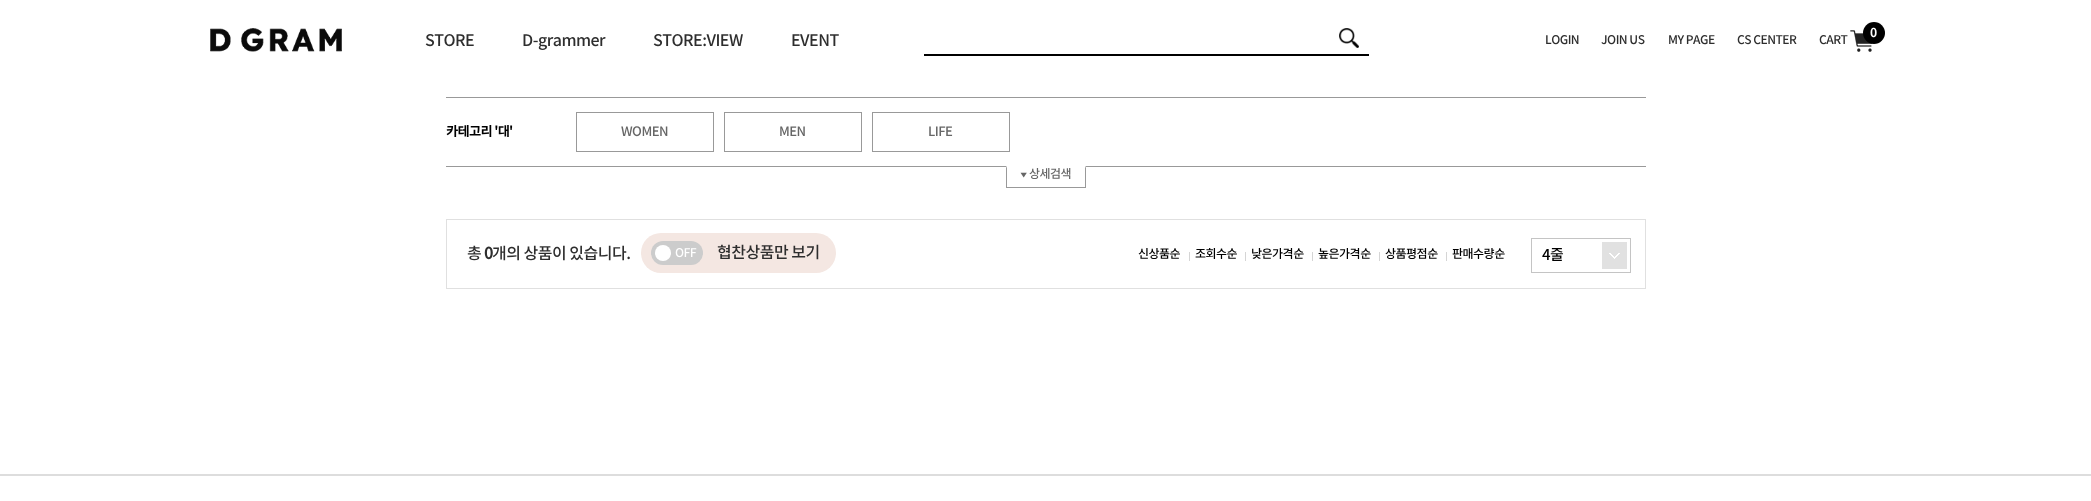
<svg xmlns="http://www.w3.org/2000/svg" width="2091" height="501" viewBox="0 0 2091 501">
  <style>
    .t1 { font: 500 16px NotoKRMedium; letter-spacing: -0.5px; fill: #2e2e2e; }
    .t2 { font: 500 12px NotoKRMedium; letter-spacing: -0.5px; fill: #2e2e2e; }
    .t3 { font: bold 12px NotoKRMedium; letter-spacing: -0.5px; fill: #fff; }
    .t4 { font: bold 13px NotoKRMedium; letter-spacing: -0.5px; fill: #000; }
    .t5 { font: 500 13px NotoKRMedium; letter-spacing: -0.5px; fill: #666; }
    .t6 { font: 8px Dotum; letter-spacing: -0.5px; fill: #666; }
    .t7 { font: 500 12px NotoKRMedium; letter-spacing: -0.5px; fill: #666; }
    .t8 { font: bold 16px NotoKRMedium; letter-spacing: -0.5px; fill: #2e2e2e; }
    .t9 { font: 500 12px NotoKRMedium; letter-spacing: -0.5px; fill: #000; }
    .t10 { font: 500 15px NotoKRMedium; letter-spacing: -0.5px; fill: #000; }
  </style>
  <rect width="100%" height="100%" fill="#fff"/>
  <image x="210" y="28" width="132" height="24" href="images/1.png"/>
  <text x="425" y="46" class="t1">STORE</text>
  <text x="522" y="46" class="t1">D-grammer</text>
  <text x="653" y="46" class="t1">STORE:VIEW</text>
  <text x="791" y="46" class="t1">EVENT</text>
  <image x="1339" y="28" width="20" height="20" href="images/2.png"/>
  <rect x="924" y="54" width="445" height="2" fill="#000"/>
  <text x="1545" y="44" class="t2">LOGIN</text>
  <text x="1601" y="44" class="t2">JOIN US</text>
  <text x="1668" y="44" class="t2">MY PAGE</text>
  <text x="1737" y="44" class="t2">CS CENTER</text>
  <text x="1819" y="44" class="t2">CART</text>
  <image x="1850" y="30" width="23" height="22" href="images/3.png"/>
  <circle cx="1874" cy="33" r="11" fill="#000"/>
  <text x="1870" y="37" class="t3">0</text>
  <rect x="446" y="97" width="1200" height="1" fill="#999"/>
  <rect x="446" y="166" width="1200" height="1" fill="#999"/>
  <text x="446" y="136" class="t4">카테고리 '대'</text>
  <rect x="576.5" y="112.5" width="137" height="39" fill="none" stroke="#999"/>
  <text x="621" y="136" class="t5">WOMEN</text>
  <rect x="724.5" y="112.5" width="137" height="39" fill="none" stroke="#999"/>
  <text x="779" y="136" class="t5">MEN</text>
  <rect x="872.5" y="112.5" width="137" height="39" fill="none" stroke="#999"/>
  <text x="928" y="136" class="t5">LIFE</text>
  <path d="M1006 166H1086L1085 168H1007Z" fill="#fff"/>
  <path d="M1086 166V188L1085 187V168Z" fill="#999"/>
  <rect x="1006" y="187" width="80" height="1" fill="#999"/>
  <path d="M1006 188V166L1007 168V187Z" fill="#999"/>
  <text x="1020" y="178" class="t6">▼</text>
  <text x="1029" y="178" class="t7">상세검색</text>
  <rect x="446.5" y="219.5" width="1199" height="69" fill="none" stroke="#e0e0e0"/>
  <text x="467" y="259" class="t1">총</text>
  <text x="484" y="259" class="t8">0</text>
  <text x="492" y="259" class="t1">개의 상품이 있습니다.</text>
  <rect x="641" y="233" width="195" height="40" rx="20" fill="#f4e7e2"/>
  <rect x="651" y="241" width="52" height="24" rx="12" fill="#ccc"/>
  <circle cx="663" cy="253" r="8" fill="#fff"/>
  <image x="675" y="248" width="22" height="10" href="images/4.png"/>
  <text x="717" y="258" class="t1">협찬상품만 보기</text>
  <text x="1138" y="258" class="t9">신상품순</text>
  <text x="1195" y="258" class="t9">조회수순</text>
  <rect x="1189" y="252" width="1" height="9" fill="#d5d5d5"/>
  <text x="1251" y="258" class="t9">낮은가격순</text>
  <rect x="1245" y="252" width="1" height="9" fill="#d5d5d5"/>
  <text x="1318" y="258" class="t9">높은가격순</text>
  <rect x="1312" y="252" width="1" height="9" fill="#d5d5d5"/>
  <text x="1385" y="258" class="t9">상품평점순</text>
  <rect x="1379" y="252" width="1" height="9" fill="#d5d5d5"/>
  <text x="1452" y="258" class="t9">판매수량순</text>
  <rect x="1446" y="252" width="1" height="9" fill="#d5d5d5"/>
  <rect x="1531.5" y="238.5" width="99" height="34" fill="none" stroke="#c4c4c4"/>
  <text x="1542" y="260" class="t10">4줄</text>
  <image x="1602" y="242" width="25" height="27" href="images/5.png"/>
  <rect x="0" y="474" width="2091" height="2" fill="#ddd"/>
</svg>
